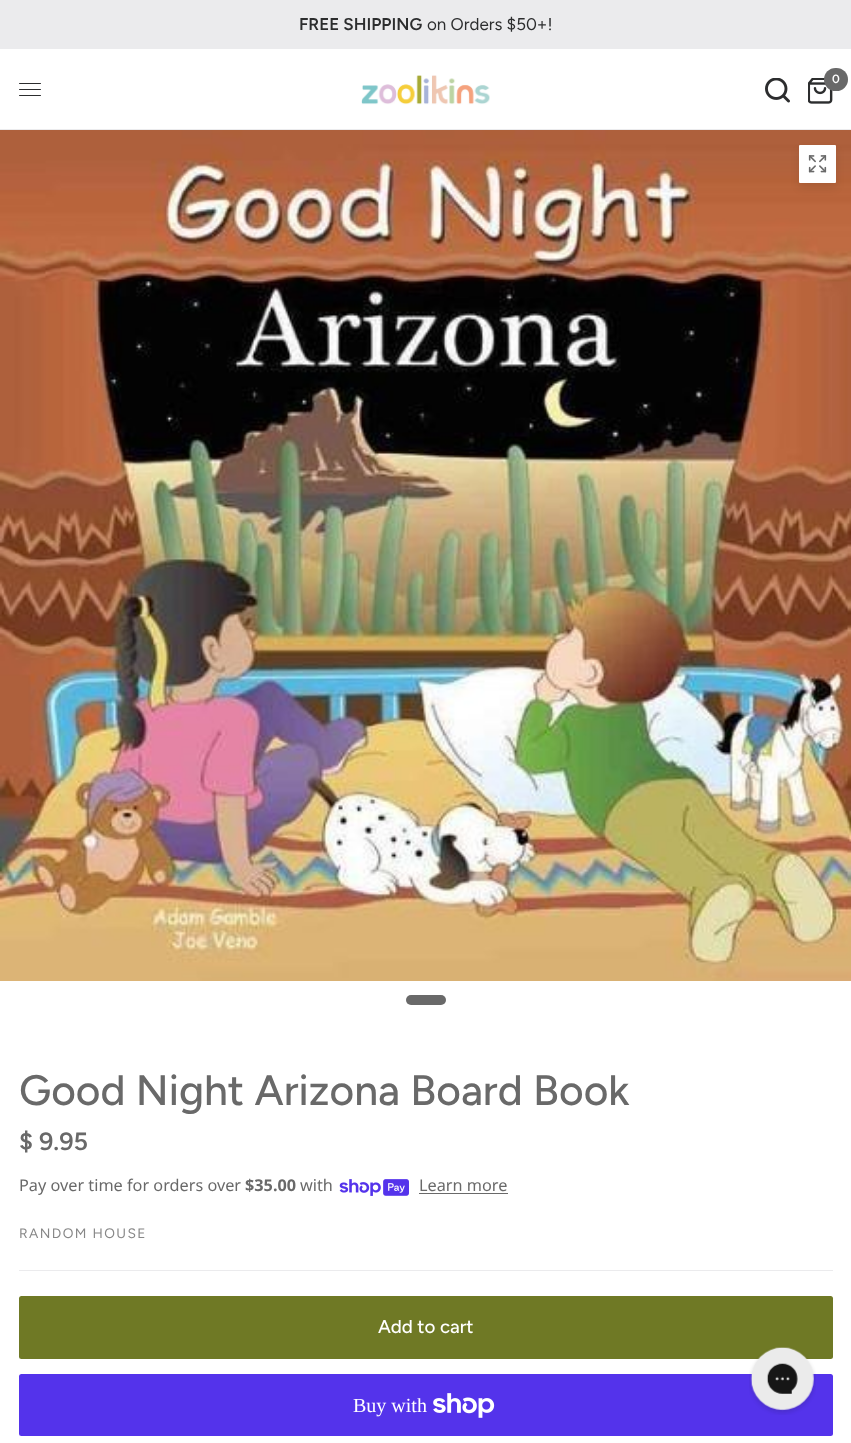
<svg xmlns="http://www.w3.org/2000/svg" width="851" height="1443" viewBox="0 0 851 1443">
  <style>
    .t1 { font: 600 17px Figtree; fill: #2c2d2e; }
    .t2 { font: 17px Figtree; fill: #2c2d2e; }
    .t3 { font: 600 12px Figtree; fill: #fff; }
    .t4 { font: 500 42.5px Figtree; fill: #696969; }
    .t5 { font: 600 25px Figtree; fill: #696969; }
    .t6 { font: 16.25px Noto Sans; fill: #696969; }
    .t7 { font: bold 16.25px Noto Sans; fill: #696969; }
    .t8 { font: 13.75px Figtree; letter-spacing: 1.4px; fill: #878787; }
    .t9 { font: 500 18.75px Figtree; fill: #fff; }
    .t10 { font: 20px Liberation Serif; fill: #fff; }
  </style>
  <rect width="100%" height="100%" fill="#fff"/>
  <rect x="0" y="0" width="851" height="49" fill="#ebebed"/>
  <text x="299" y="30" class="t1">FREE SHIPPING</text>
  <text x="427" y="30" class="t2">on Orders $50+!</text>
  <rect x="19" y="83" width="22" height="1" rx="0.5" fill="#2c2d2e"/>
  <rect x="19" y="89" width="22" height="1" rx="0.5" fill="#2c2d2e"/>
  <rect x="19" y="95" width="22" height="1" rx="0.5" fill="#2c2d2e"/>
  <image x="361" y="75" width="129" height="30" href="images/1.png"/>
  <image x="765" y="78" width="25" height="25" href="images/2.png"/>
  <image x="808" y="78" width="25" height="26" href="images/3.png"/>
  <rect x="824" y="68" width="24" height="23" rx="11.5" fill="#696969"/>
  <text x="832" y="83" class="t3">0</text>
  <rect x="0" y="129" width="851" height="1" fill="#ebebed"/>
  <image x="0" y="130" width="851" height="851" href="images/4.png"/>
  <rect x="799" y="150" width="37" height="38" rx="1" fill="#00000014" filter="blur(4px)"/>
  <rect x="799" y="145" width="37" height="38" rx="1" fill="#fff"/>
  <image x="808" y="155" width="19" height="18" href="images/5.png"/>
  <rect x="406" y="995" width="40" height="10" rx="5" fill="#696969"/>
  <text x="19" y="1105" class="t4">Good Night Arizona Board Book</text>
  <text x="19" y="1150" class="t5">$ 9.95</text>
  <text x="19" y="1191" class="t6">Pay over time for orders over</text>
  <text x="245" y="1191" class="t7">$35.00</text>
  <text x="300" y="1191" class="t6">with</text>
  <image x="339" y="1179" width="70" height="17" href="images/6.png"/>
  <text x="419" y="1191" class="t6">Learn more</text>
  <rect x="419" y="1193" width="89" height="1" fill="#696969"/>
  <text x="19" y="1238" class="t8">RANDOM HOUSE</text>
  <rect x="19" y="1270" width="814" height="1" fill="#ebebed"/>
  <rect x="19" y="1296" width="814" height="63" rx="2.5" fill="#6f7925"/>
  <text x="378" y="1333" class="t9">Add to cart</text>
  <rect x="19" y="1374" width="814" height="62" rx="2.5" fill="#5433eb"/>
  <text x="353" y="1412" class="t10">Buy with</text>
  <image x="433" y="1393" width="62" height="25" href="images/7.png"/>
  <image x="749" y="1347" width="67" height="68" href="images/8.png"/>
</svg>
